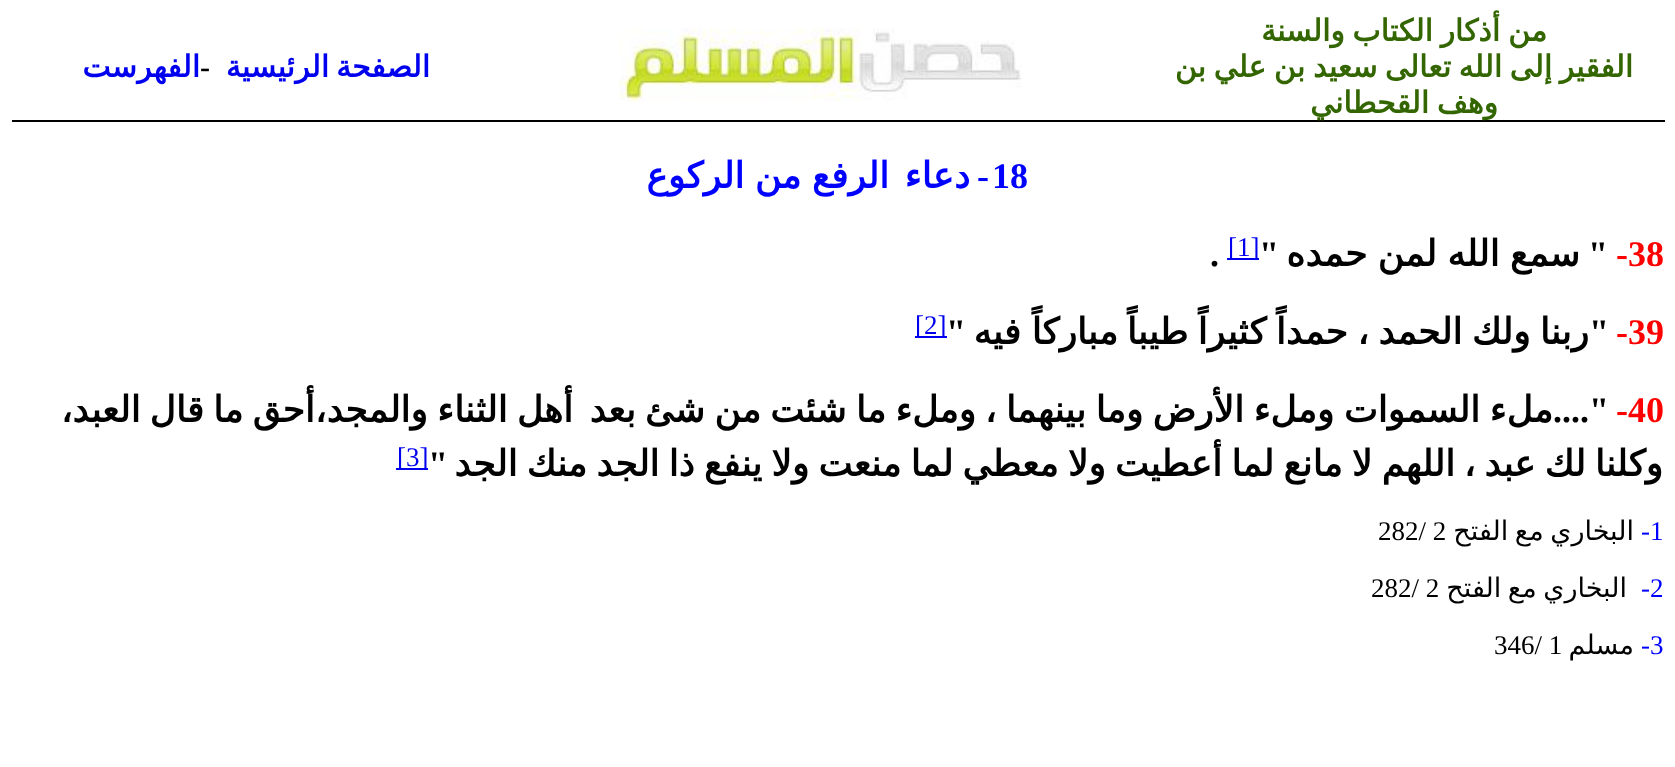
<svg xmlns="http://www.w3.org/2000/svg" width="1675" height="767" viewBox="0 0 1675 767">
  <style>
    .t1 { font: bold 30px DejaVu Sans; direction: rtl; fill: #360; }
    .t2 { font: bold 30px DejaVu Sans; direction: rtl; fill: #00e; }
    .t3 { font: bold 30px Liberation Serif; fill: #000; }
    .t4 { font: bold 36px Liberation Serif; fill: #00f; }
    .t5 { font: bold 36px Liberation Serif; direction: rtl; fill: #00f; }
    .t6 { font: bold 36px DejaVu Sans; direction: rtl; fill: #00f; }
    .t7 { font: bold 36px Liberation Serif; fill: #f00; }
    .t8 { font: bold 36px Liberation Serif; direction: rtl; fill: #000; }
    .t9 { font: bold 36px DejaVu Sans; direction: rtl; fill: #000; }
    .t10 { font: 27px Liberation Serif; fill: #00e; }
    .t11 { font: bold 36px Liberation Serif; fill: #000; }
    .t12 { font: 27px Liberation Serif; fill: #00f; }
    .t13 { font: 27px DejaVu Sans; direction: rtl; fill: #000; }
    .t14 { font: 27px Liberation Serif; fill: #000; }
  </style>
  <rect width="100%" height="100%" fill="#fff"/>
  <text x="1547" y="41" class="t1">من</text>
  <text x="1500" y="41" word-spacing="-2" class="t1">أذكار الكتاب والسنة</text>
  <image x="619" y="28" width="403" height="74" href="images/1.png"/>
  <text x="430" y="77" class="t2">الصفحة</text>
  <text x="329" y="77" class="t2">الرئيسية</text>
  <text x="200" y="77" class="t3">-</text>
  <text x="200" y="77" class="t2">الفهرست</text>
  <text x="1633" y="77" word-spacing="-2" class="t1">الفقير إلى الله تعالى سعيد</text>
  <text x="1305" y="77" word-spacing="-2" class="t1">بن علي بن</text>
  <rect x="12" y="120" width="1653" height="2" fill="#000"/>
  <text x="1498" y="113" word-spacing="-2" class="t1">وهف القحطاني</text>
  <text x="992" y="188" class="t4">18</text>
  <text x="989" y="188" class="t5">-</text>
  <text x="970" y="188" class="t6">دعاء</text>
  <text x="889" y="188" word-spacing="-1" class="t6">الرفع من الركوع</text>
  <text x="1616" y="266" class="t7">-38</text>
  <text x="1608" y="266" class="t8">"</text>
  <text x="1580" y="266" word-spacing="-1" class="t9">سمع الله لمن حمده</text>
  <text x="1279" y="266" class="t8">"</text>
  <rect x="1227" y="258" width="32" height="2" fill="#00e"/>
  <text x="1228" y="256" class="t10">[1]</text>
  <text x="1210" y="266" class="t11">.</text>
  <text x="1589" y="344" word-spacing="-2" class="t9">ربنا ولك الحمد ، حمداً كثيراً طيباً</text>
  <text x="1118" y="344" word-spacing="-1" class="t9">مباركاً فيه</text>
  <text x="966" y="344" class="t8">"</text>
  <rect x="915" y="336" width="32" height="2" fill="#00e"/>
  <text x="915" y="334" class="t10">[2]</text>
  <text x="1616" y="344" class="t7">-39</text>
  <text x="1609" y="344" class="t8">"</text>
  <text x="1616" y="422" class="t7">-40</text>
  <text x="1553" y="422" word-spacing="-2" class="t9">ملء السموات وملء الأرض وما بينهما ،</text>
  <text x="1609" y="422" class="t8">"....</text>
  <text x="976" y="422" word-spacing="-2.25" class="t9">وملء ما شئت من شئ بعد</text>
  <text x="573" y="422" word-spacing="-2.25" class="t9">أهل الثناء والمجد،أحق ما قال العبد،</text>
  <text x="1663" y="476" word-spacing="-2.5" class="t9">وكلنا لك عبد ،</text>
  <text x="1455" y="476" word-spacing="-2.25" class="t9">اللهم لا مانع لما أعطيت ولا معطي لما منعت ولا ينفع ذا الجد منك الجد</text>
  <text x="448" y="476" class="t8">"</text>
  <rect x="396" y="468" width="32" height="2" fill="#00e"/>
  <text x="397" y="466" class="t10">[3]</text>
  <text x="1650" y="540" class="t12">1</text>
  <text x="1641" y="540" class="t12">-</text>
  <text x="1634" y="540" word-spacing="-2" class="t13">البخاري مع الفتح</text>
  <text x="1378" y="540" class="t14">282/ 2</text>
  <text x="1650" y="597" class="t12">2</text>
  <text x="1641" y="597" class="t12">-</text>
  <text x="1627" y="597" word-spacing="-2" class="t13">البخاري مع الفتح</text>
  <text x="1371" y="597" class="t14">282/ 2</text>
  <text x="1650" y="654" class="t12">3</text>
  <text x="1641" y="654" class="t12">-</text>
  <text x="1634" y="654" class="t13">مسلم</text>
  <text x="1494" y="654" class="t14">346/ 1</text>
</svg>
